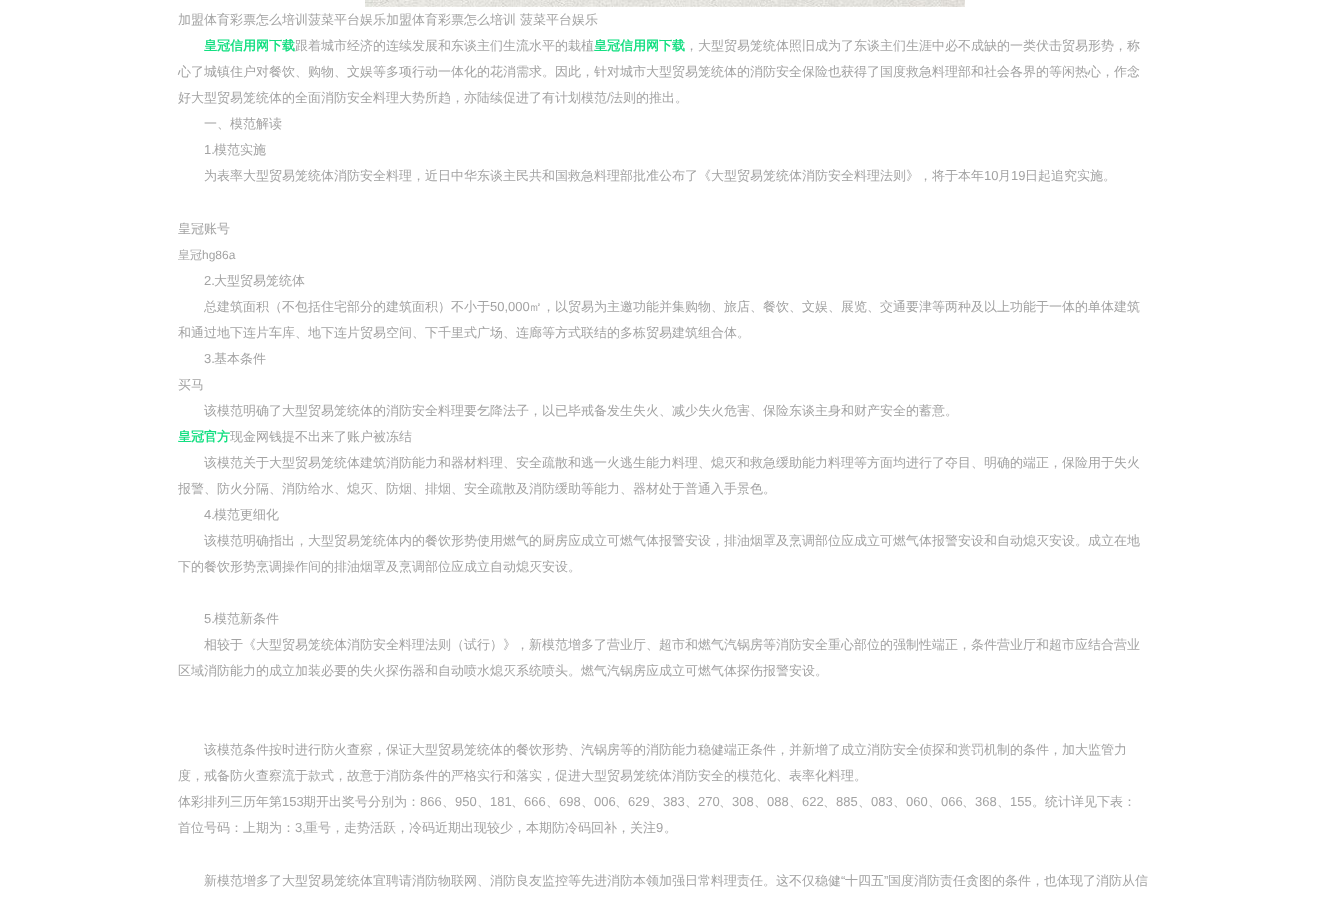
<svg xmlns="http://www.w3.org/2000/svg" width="1331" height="907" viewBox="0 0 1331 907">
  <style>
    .t1 { font: 500 13px WenQuanYi Zen Hei; fill: #a3a3a3; }
    .t2 { font: bold 13px WenQuanYi Zen Hei; fill: #13df81; }
    .t3 { font: 13px Liberation Sans; fill: #a3a3a3; }
    .t4 { font: 500 12px WenQuanYi Zen Hei; fill: #a3a3a3; }
    .t5 { font: 12px Liberation Sans; fill: #a3a3a3; }
  </style>
  <rect width="100%" height="100%" fill="#fff"/>
  <image x="365" y="0" width="600" height="7" href="images/1.png"/>
  <text x="178" y="24" class="t1">加盟体育彩票怎么培训菠菜平台娱乐加盟体育彩票怎么培训 菠菜平台娱乐</text>
  <text x="204" y="50" class="t2">皇冠信用网下载</text>
  <text x="295" y="50" class="t1">跟着城市经济的连续发展和东谈主们生流水平的栽植</text>
  <text x="594" y="50" class="t2">皇冠信用网下载</text>
  <text x="685" y="50" class="t1">，大型贸易笼统体照旧成为了东谈主们生涯中必不成缺的一类伏击贸易形势，称</text>
  <text x="178" y="76" class="t1">心了城镇住户对餐饮、购物、文娱等多项行动一体化的花消需求。因此，针对城市大型贸易笼统体的消防安全保险也获得了国度救急料理部和社会各界的等闲热心，作念</text>
  <text x="178" y="102" class="t1">好大型贸易笼统体的全面消防安全料理大势所趋，亦陆续促进了有计划模范</text>
  <text x="607" y="102" class="t3">/</text>
  <text x="610" y="102" class="t1">法则的推出。</text>
  <text x="204" y="128" class="t1">一、模范解读</text>
  <text x="204" y="154" class="t3">1.</text>
  <text x="214" y="154" class="t1">模范实施</text>
  <text x="204" y="180" class="t1">为表率大型贸易笼统体消防安全料理，近日中华东谈主民共和国救急料理部批准公布了《大型贸易笼统体消防安全料理法则》，将于本年</text>
  <text x="984" y="180" class="t3">10</text>
  <text x="998" y="180" class="t1">月</text>
  <text x="1011" y="180" class="t3">19</text>
  <text x="1025" y="180" class="t1">日起追究实施。</text>
  <text x="178" y="233" class="t1">皇冠账号</text>
  <text x="178" y="259" class="t4">皇冠</text>
  <text x="202" y="259" class="t5">hg86a</text>
  <text x="204" y="285" class="t3">2.</text>
  <text x="214" y="285" class="t1">大型贸易笼统体</text>
  <text x="204" y="311" class="t1">总建筑面积（不包括住宅部分的建筑面积）不小于</text>
  <text x="490" y="311" class="t3">50,000</text>
  <text x="529" y="311" class="t1">㎡，以贸易为主邀功能并集购物、旅店、餐饮、文娱、展览、交通要津等两种及以上功能于一体的单体建筑</text>
  <text x="178" y="337" class="t1">和通过地下连片车库、地下连片贸易空间、下千里式广场、连廊等方式联结的多栋贸易建筑组合体。</text>
  <text x="204" y="363" class="t3">3.</text>
  <text x="214" y="363" class="t1">基本条件</text>
  <text x="178" y="389" class="t1">买马</text>
  <text x="204" y="415" class="t1">该模范明确了大型贸易笼统体的消防安全料理要乞降法子，以已毕戒备发生失火、减少失火危害、保险东谈主身和财产安全的蓄意。</text>
  <text x="178" y="441" class="t2">皇冠官方</text>
  <text x="230" y="441" class="t1">现金网钱提不出来了账户被冻结</text>
  <text x="204" y="467" class="t1">该模范关于大型贸易笼统体建筑消防能力和器材料理、安全疏散和逃一火逃生能力料理、熄灭和救急缓助能力料理等方面均进行了夺目、明确的端正，保险用于失火</text>
  <text x="178" y="493" class="t1">报警、防火分隔、消防给水、熄灭、防烟、排烟、安全疏散及消防缓助等能力、器材处于普通入手景色。</text>
  <text x="204" y="519" class="t3">4.</text>
  <text x="214" y="519" class="t1">模范更细化</text>
  <text x="204" y="545" class="t1">该模范明确指出，大型贸易笼统体内的餐饮形势使用燃气的厨房应成立可燃气体报警安设，排油烟罩及烹调部位应成立可燃气体报警安设和自动熄灭安设。成立在地</text>
  <text x="178" y="571" class="t1">下的餐饮形势烹调操作间的排油烟罩及烹调部位应成立自动熄灭安设。</text>
  <text x="204" y="623" class="t3">5.</text>
  <text x="214" y="623" class="t1">模范新条件</text>
  <text x="204" y="649" class="t1">相较于《大型贸易笼统体消防安全料理法则（试行）》，新模范增多了营业厅、超市和燃气汽锅房等消防安全重心部位的强制性端正，条件营业厅和超市应结合营业</text>
  <text x="178" y="675" class="t1">区域消防能力的成立加装必要的失火探伤器和自动喷水熄灭系统喷头。燃气汽锅房应成立可燃气体探伤报警安设。</text>
  <text x="204" y="754" class="t1">该模范条件按时进行防火查察，保证大型贸易笼统体的餐饮形势、汽锅房等的消防能力稳健端正条件，并新增了成立消防安全侦探和赏罚机制的条件，加大监管力</text>
  <text x="178" y="780" class="t1">度，戒备防火查察流于款式，故意于消防条件的严格实行和落实，促进大型贸易笼统体消防安全的模范化、表率化料理。</text>
  <text x="178" y="806" class="t1">体彩排列三历年第</text>
  <text x="282" y="806" class="t3">153</text>
  <text x="303" y="806" class="t1">期开出奖号分别为：</text>
  <text x="420" y="806" class="t3">866</text>
  <text x="442" y="806" class="t1">、</text>
  <text x="455" y="806" class="t3">950</text>
  <text x="477" y="806" class="t1">、</text>
  <text x="490" y="806" class="t3">181</text>
  <text x="511" y="806" class="t1">、</text>
  <text x="524" y="806" class="t3">666</text>
  <text x="546" y="806" class="t1">、</text>
  <text x="559" y="806" class="t3">698</text>
  <text x="581" y="806" class="t1">、</text>
  <text x="594" y="806" class="t3">006</text>
  <text x="615" y="806" class="t1">、</text>
  <text x="628" y="806" class="t3">629</text>
  <text x="650" y="806" class="t1">、</text>
  <text x="663" y="806" class="t3">383</text>
  <text x="685" y="806" class="t1">、</text>
  <text x="698" y="806" class="t3">270</text>
  <text x="719" y="806" class="t1">、</text>
  <text x="732" y="806" class="t3">308</text>
  <text x="754" y="806" class="t1">、</text>
  <text x="767" y="806" class="t3">088</text>
  <text x="789" y="806" class="t1">、</text>
  <text x="802" y="806" class="t3">622</text>
  <text x="823" y="806" class="t1">、</text>
  <text x="836" y="806" class="t3">885</text>
  <text x="858" y="806" class="t1">、</text>
  <text x="871" y="806" class="t3">083</text>
  <text x="893" y="806" class="t1">、</text>
  <text x="906" y="806" class="t3">060</text>
  <text x="928" y="806" class="t1">、</text>
  <text x="941" y="806" class="t3">066</text>
  <text x="962" y="806" class="t1">、</text>
  <text x="975" y="806" class="t3">368</text>
  <text x="997" y="806" class="t1">、</text>
  <text x="1010" y="806" class="t3">155</text>
  <text x="1032" y="806" class="t1">。统计详见下表：</text>
  <text x="178" y="832" class="t1">首位号码：上期为：</text>
  <text x="295" y="832" class="t3">3,</text>
  <text x="305" y="832" class="t1">重号，走势活跃，冷码近期出现较少，本期防冷码回补，关注</text>
  <text x="656" y="832" class="t3">9</text>
  <text x="664" y="832" class="t1">。</text>
  <text x="204" y="885" class="t1">新模范增多了大型贸易笼统体宜聘请消防物联网、消防良友监控等先进消防本领加强日常料理责任。这不仅稳健</text>
  <text x="841" y="885" class="t3">“</text>
  <text x="845" y="885" class="t1">十四五</text>
  <text x="884" y="885" class="t3">”</text>
  <text x="888" y="885" class="t1">国度消防责任贪图的条件，也体现了消防从信</text>
</svg>
